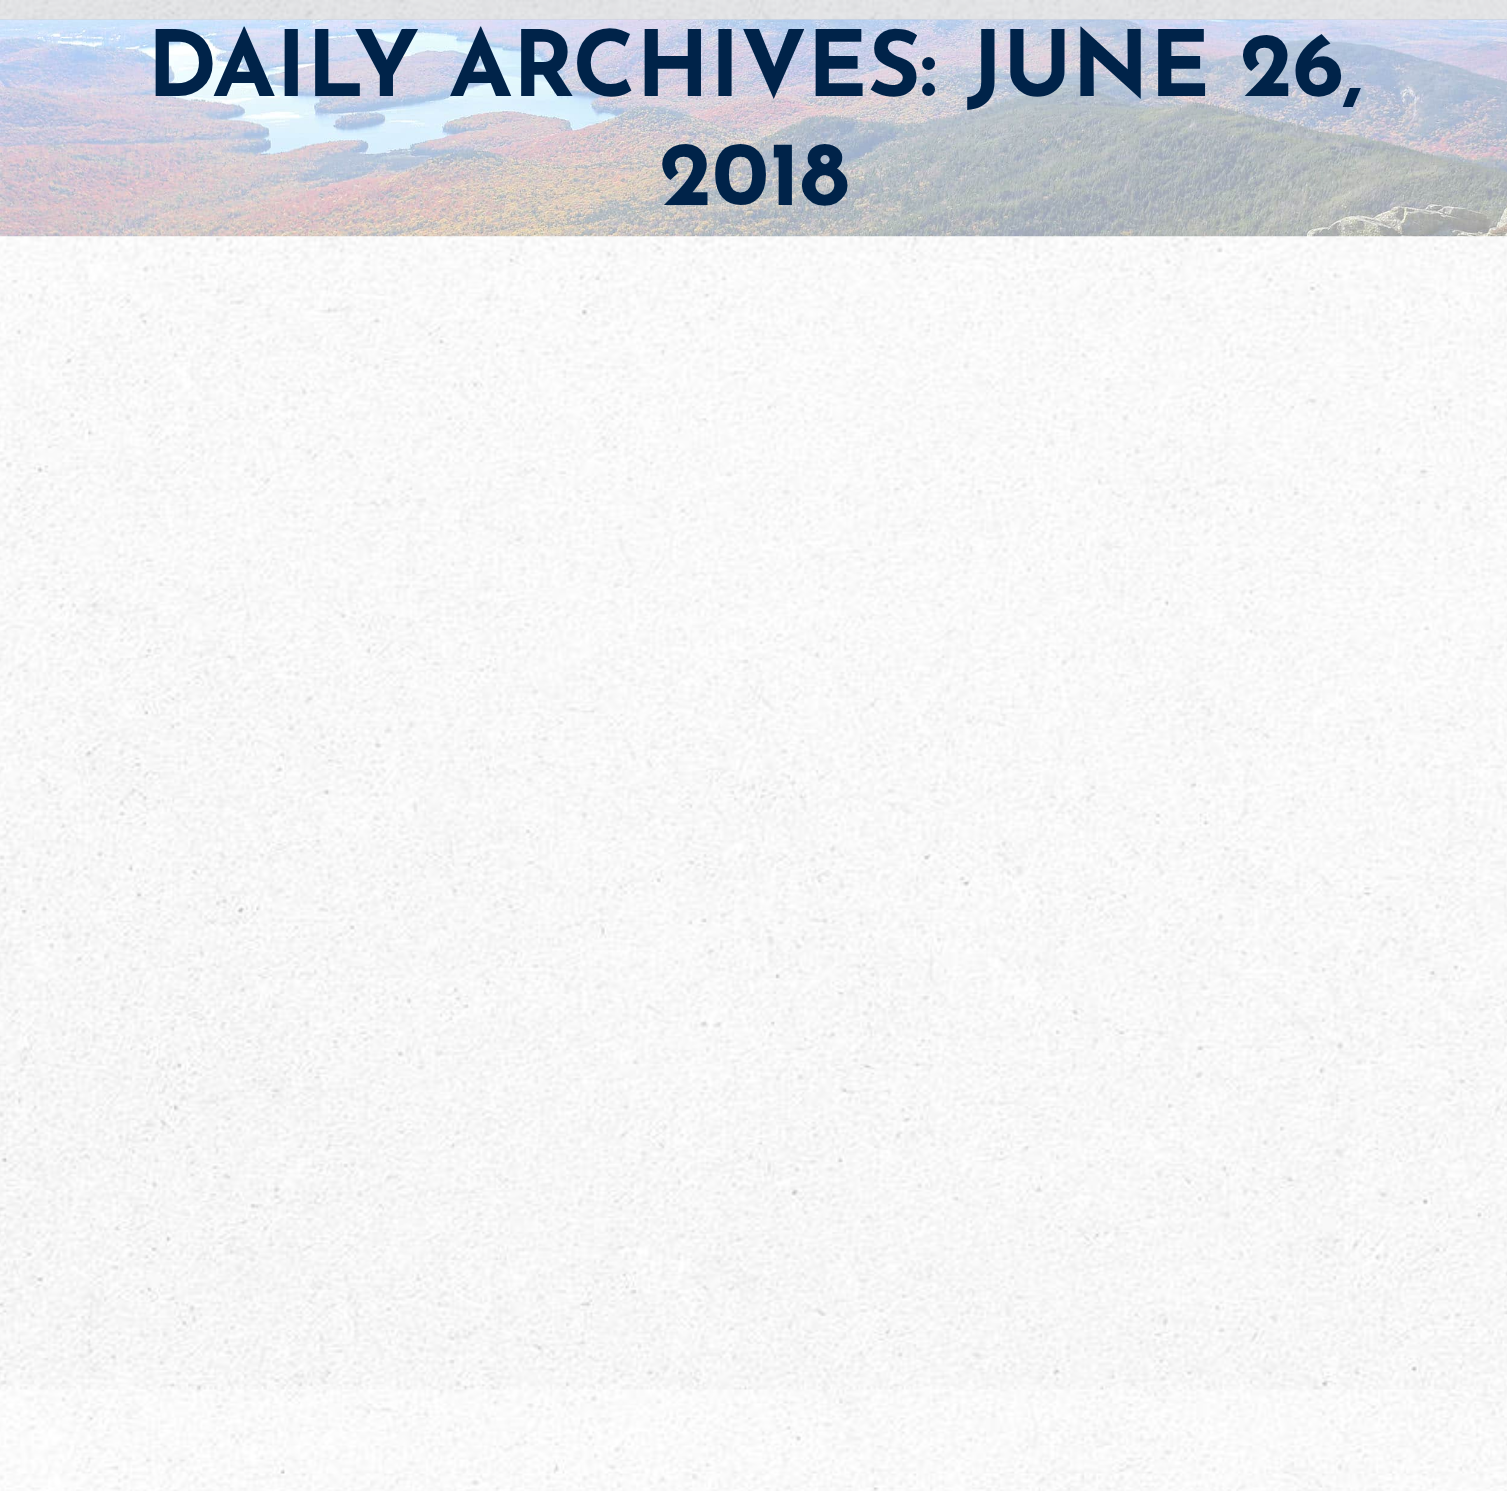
<svg xmlns="http://www.w3.org/2000/svg" width="1507" height="1491" viewBox="0 0 1507 1491">
  <style>
    .t1 { font: bold 91px Josefin Sans; fill: #002349; }
  </style>
  <rect width="100%" height="100%" fill="#fff"/>
  <image x="0" y="19" width="1507" height="1472" href="images/1.png"/>
  <image x="0" y="19" width="1507" height="218" href="images/3.png"/>
  <image x="0" y="0" width="1507" height="20" href="images/2.png"/>
  <rect x="0" y="18" width="1507" height="2" fill="#adb0b64d"/>
  <text x="147" y="96" class="t1">DAILY ARCHIVES: JUNE 26,</text>
  <text x="659" y="205" class="t1">2018</text>
</svg>
